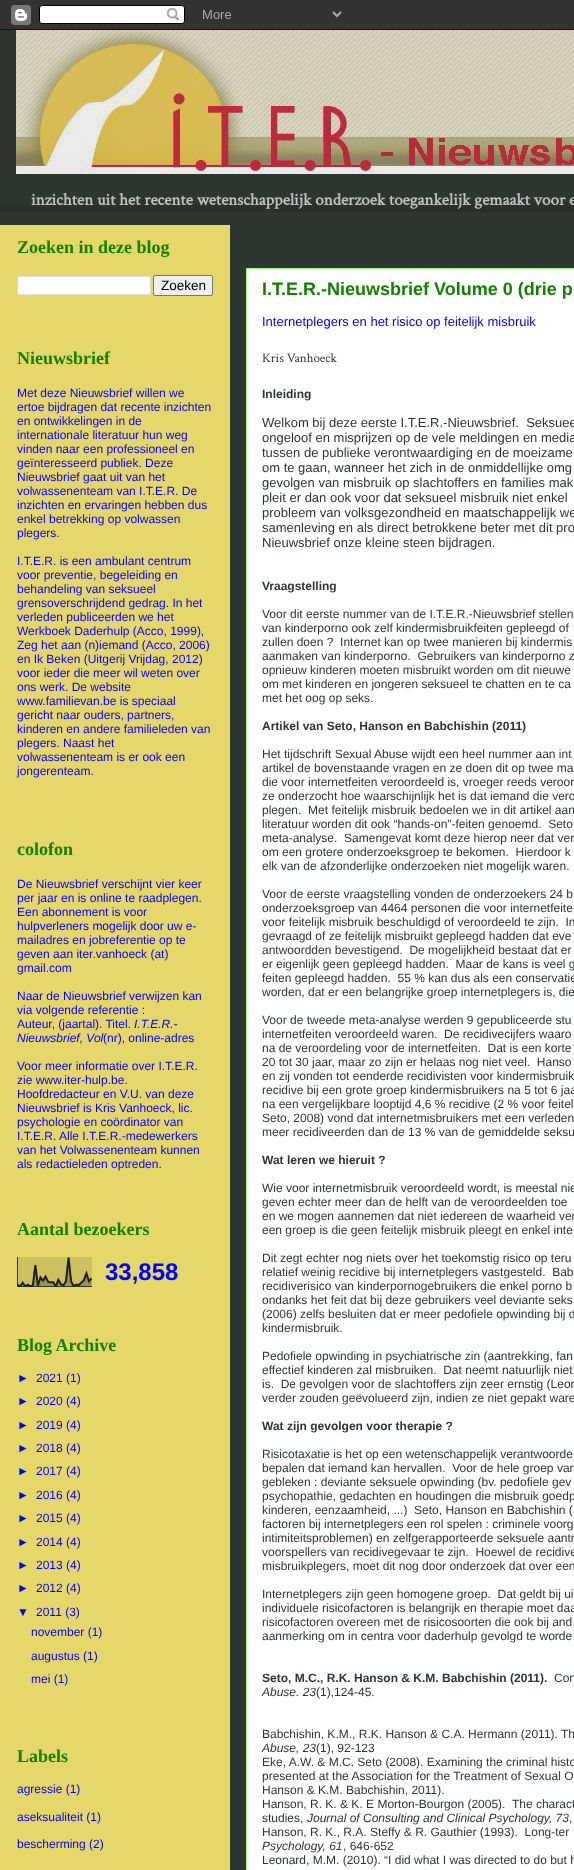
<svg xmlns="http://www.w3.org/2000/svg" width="574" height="1870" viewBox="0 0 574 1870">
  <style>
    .t1 { font: bold 17px Crimson Text; fill: #c0c0c0; }
    .t2 { font: bold 18px Liberation Serif; fill: #138200; }
    .t3 { font: 13.5px Liberation Sans; fill: #000; }
    .t4 { font: 12px Liberation Sans; fill: #00f; }
    .t5 { font: italic 12px Liberation Sans; fill: #00f; }
    .t6 { font: bold 24px Liberation Sans; fill: #00f; }
    .t7 { font: bold 18px Liberation Sans; fill: #138200; }
    .t8 { font: 13px Liberation Sans; fill: #00f; }
    .t9 { font: 13px Crimson Text; fill: #2d372f; }
    .t10 { font: bold 12px Liberation Sans; fill: #2d372f; }
    .t11 { font: 13px Liberation Sans; fill: #2d372f; }
    .t12 { font: 12px Liberation Sans; fill: #2d372f; }
    .t13 { font: italic 12px Liberation Sans; fill: #2d372f; }
  </style>
  <rect width="100%" height="100%" fill="#2d372f"/>
  <image x="0" y="0" width="574" height="30" href="images/1.png"/>
  <image x="16" y="30" width="558" height="144" href="images/2.png"/>
  <image x="0" y="203" width="574" height="9" href="images/3.png"/>
  <text x="31" y="205" class="t1">inzichten uit het recente wetenschappelijk onderzoek toegankelijk gemaakt voor e</text>
  <rect x="0" y="225" width="230" height="1645" fill="#e5d76a"/>
  <text x="17" y="253" class="t2">Zoeken in deze blog</text>
  <rect x="17.5" y="276.5" width="133" height="18" fill="#fff" stroke="#ddd"/>
  <rect x="153.5" y="275.5" width="59" height="20" rx="1.5" fill="#efefef" stroke="#767676"/>
  <text x="161" y="290" class="t3">Zoeken</text>
  <text x="17" y="364" class="t2">Nieuwsbrief</text>
  <text x="17" y="397" class="t4">Met deze Nieuwsbrief willen we</text>
  <text x="17" y="411" class="t4">ertoe bijdragen dat recente inzichten</text>
  <text x="17" y="425" class="t4">en ontwikkelingen in de</text>
  <text x="17" y="439" class="t4">internationale literatuur hun weg</text>
  <text x="17" y="453" class="t4">vinden naar een professioneel en</text>
  <text x="17" y="467" class="t4">geïnteresseerd publiek. Deze</text>
  <text x="17" y="481" class="t4">Nieuwsbrief gaat uit van het</text>
  <text x="17" y="495" class="t4">volwassenenteam van I.T.E.R. De</text>
  <text x="17" y="509" class="t4">inzichten en ervaringen hebben dus</text>
  <text x="17" y="523" class="t4">enkel betrekking op volwassen</text>
  <text x="17" y="537" class="t4">plegers.</text>
  <text x="17" y="565" class="t4">I.T.E.R. is een ambulant centrum</text>
  <text x="17" y="579" class="t4">voor preventie, begeleiding en</text>
  <text x="17" y="593" class="t4">behandeling van seksueel</text>
  <text x="17" y="607" class="t4">grensoverschrijdend gedrag. In het</text>
  <text x="17" y="621" class="t4">verleden publiceerden we het</text>
  <text x="17" y="635" class="t4">Werkboek Daderhulp (Acco, 1999),</text>
  <text x="17" y="649" class="t4">Zeg het aan (n)iemand (Acco, 2006)</text>
  <text x="17" y="663" class="t4">en Ik Beken (Uitgerij Vrijdag, 2012)</text>
  <text x="17" y="677" class="t4">voor ieder die meer wil weten over</text>
  <text x="17" y="691" class="t4">ons werk. De website</text>
  <text x="17" y="705" class="t4">www.familievan.be is speciaal</text>
  <text x="17" y="719" class="t4">gericht naar ouders, partners,</text>
  <text x="17" y="733" class="t4">kinderen en andere familieleden van</text>
  <text x="17" y="747" class="t4">plegers. Naast het</text>
  <text x="17" y="761" class="t4">volwassenenteam is er ook een</text>
  <text x="17" y="775" class="t4">jongerenteam.</text>
  <text x="17" y="855" class="t2">colofon</text>
  <text x="17" y="888" class="t4">De Nieuwsbrief verschijnt vier keer</text>
  <text x="17" y="902" class="t4">per jaar en is online te raadplegen.</text>
  <text x="17" y="916" class="t4">Een abonnement is voor</text>
  <text x="17" y="930" class="t4">hulpverleners mogelijk door uw e-</text>
  <text x="17" y="944" class="t4">mailadres en jobreferentie op te</text>
  <text x="17" y="958" class="t4">geven aan iter.vanhoeck (at)</text>
  <text x="17" y="972" class="t4">gmail.com</text>
  <text x="17" y="1000" class="t4">Naar de Nieuwsbrief verwijzen kan</text>
  <text x="17" y="1014" class="t4">via volgende referentie :</text>
  <text x="17" y="1028" class="t4">Auteur, (jaartal). Titel.</text>
  <text x="134" y="1028" class="t5">I.T.E.R.-</text>
  <text x="17" y="1042" class="t5">Nieuwsbrief, Vol</text>
  <text x="103" y="1042" class="t4">(nr), online-adres</text>
  <text x="17" y="1070" class="t4">Voor meer informatie over I.T.E.R.</text>
  <text x="17" y="1084" class="t4">zie www.iter-hulp.be.</text>
  <text x="17" y="1098" class="t4">Hoofdredacteur en V.U. van deze</text>
  <text x="17" y="1112" class="t4">Nieuwsbrief is Kris Vanhoeck, lic.</text>
  <text x="17" y="1126" class="t4">psychologie en coördinator van</text>
  <text x="17" y="1140" class="t4">I.T.E.R.</text>
  <text x="59" y="1140" class="t4">Alle I.T.E.R.-medewerkers</text>
  <text x="17" y="1154" class="t4">van het Volwassenenteam kunnen</text>
  <text x="17" y="1168" class="t4">als redactieleden optreden.</text>
  <text x="17" y="1235" class="t2">Aantal bezoekers</text>
  <image x="17" y="1257" width="75" height="30" href="images/4.png"/>
  <text x="105" y="1280" class="t6">33,858</text>
  <text x="17" y="1351" class="t2">Blog Archive</text>
  <text x="17" y="1382" class="t4">►</text>
  <text x="36" y="1382" class="t4">2021 (1)</text>
  <text x="17" y="1405" class="t4">►</text>
  <text x="36" y="1405" class="t4">2020 (4)</text>
  <text x="17" y="1429" class="t4">►</text>
  <text x="36" y="1429" class="t4">2019 (4)</text>
  <text x="17" y="1452" class="t4">►</text>
  <text x="36" y="1452" class="t4">2018 (4)</text>
  <text x="17" y="1475" class="t4">►</text>
  <text x="36" y="1475" class="t4">2017 (4)</text>
  <text x="17" y="1499" class="t4">►</text>
  <text x="36" y="1499" class="t4">2016 (4)</text>
  <text x="17" y="1522" class="t4">►</text>
  <text x="36" y="1522" class="t4">2015 (4)</text>
  <text x="17" y="1546" class="t4">►</text>
  <text x="36" y="1546" class="t4">2014 (4)</text>
  <text x="17" y="1569" class="t4">►</text>
  <text x="36" y="1569" class="t4">2013 (4)</text>
  <text x="17" y="1592" class="t4">►</text>
  <text x="36" y="1592" class="t4">2012 (4)</text>
  <text x="17" y="1616" class="t4">▼</text>
  <text x="36" y="1616" class="t4">2011 (3)</text>
  <text x="31" y="1636" class="t4">november (1)</text>
  <text x="31" y="1660" class="t4">augustus (1)</text>
  <text x="31" y="1683" class="t4">mei (1)</text>
  <text x="17" y="1762" class="t2">Labels</text>
  <text x="17" y="1793" class="t4">agressie (1)</text>
  <text x="17" y="1821" class="t4">aseksualiteit (1)</text>
  <text x="17" y="1848" class="t4">bescherming (2)</text>
  <rect x="246.5" y="268.5" width="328" height="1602" fill="#fff" stroke="#a9f58c"/>
  <text x="262" y="295" class="t7">I.T.E.R.-Nieuwsbrief Volume 0 (drie p</text>
  <text x="262" y="326" class="t8">Internetplegers en het risico op feitelijk misbruik</text>
  <text x="262" y="362" class="t9">Kris Vanhoeck</text>
  <text x="262" y="398" class="t10">Inleiding</text>
  <text x="262" y="427" class="t11" xml:space="preserve">Welkom bij deze eerste I.T.E.R.-Nieuwsbrief.  Seksuee</text>
  <text x="262" y="442" class="t11">ongeloof en misprijzen op de vele meldingen en media</text>
  <text x="262" y="457" class="t11">tussen de publieke verontwaardiging en de moeizame</text>
  <text x="262" y="472" class="t11">om te gaan, wanneer het zich in de onmiddellijke omg</text>
  <text x="262" y="487" class="t11">gevolgen van misbruik op slachtoffers en families mak</text>
  <text x="262" y="502" class="t11">pleit er dan ook voor dat seksueel misbruik niet enkel</text>
  <text x="262" y="517" class="t11">probleem van volksgezondheid en maatschappelijk we</text>
  <text x="262" y="532" class="t11">samenleving en als direct betrokkene beter met dit pro</text>
  <text x="262" y="547" class="t11">Nieuwsbrief onze kleine steen bijdragen.</text>
  <text x="262" y="590" class="t10">Vraagstelling</text>
  <text x="262" y="618" class="t12">Voor dit eerste nummer van de I.T.E.R.-Nieuwsbrief stellen</text>
  <text x="262" y="632" class="t12">van kinderporno ook zelf kindermisbruikfeiten gepleegd of</text>
  <text x="262" y="646" class="t12" xml:space="preserve">zullen doen ?  Internet kan op twee manieren bij kindermis</text>
  <text x="262" y="660" class="t12" xml:space="preserve">aanmaken van kinderporno.  Gebruikers van kinderporno z</text>
  <text x="262" y="674" class="t12">opnieuw kinderen moeten misbruikt worden om dit nieuwe</text>
  <text x="262" y="688" class="t12">om met kinderen en jongeren seksueel te chatten en te ca</text>
  <text x="262" y="702" class="t12">met het oog op seks.</text>
  <text x="262" y="730" class="t10">Artikel van Seto, Hanson en Babchishin (2011)</text>
  <text x="262" y="758" class="t12">Het tijdschrift Sexual Abuse wijdt een heel nummer aan int</text>
  <text x="262" y="772" class="t12">artikel de bovenstaande vragen en ze doen dit op twee ma</text>
  <text x="262" y="786" class="t12">die voor internetfeiten veroordeeld is, vroeger reeds veroor</text>
  <text x="262" y="800" class="t12">ze onderzocht hoe waarschijnlijk het is dat iemand die vero</text>
  <text x="262" y="814" class="t12" xml:space="preserve">plegen.  Met feitelijk misbruik bedoelen we in dit artikel aan</text>
  <text x="262" y="828" class="t12" xml:space="preserve">literatuur worden dit ook “hands-on”-feiten genoemd.  Seto</text>
  <text x="262" y="842" class="t12" xml:space="preserve">meta-analyse.  Samengevat komt deze hierop neer dat ver</text>
  <text x="262" y="856" class="t12" xml:space="preserve">om een grotere onderzoeksgroep te bekomen.  Hierdoor k</text>
  <text x="262" y="870" class="t12">elk van de afzonderlijke onderzoeken niet mogelijk waren.</text>
  <text x="262" y="898" class="t12">Voor de eerste vraagstelling vonden de onderzoekers 24 b</text>
  <text x="262" y="912" class="t12">onderzoeksgroep van 4464 personen die voor internetfeite</text>
  <text x="262" y="926" class="t12" xml:space="preserve">voor feitelijk misbruik beschuldigd of veroordeeld te zijn.  In</text>
  <text x="262" y="940" class="t12">gevraagd of ze feitelijk misbruikt gepleegd hadden dat eve</text>
  <text x="262" y="954" class="t12" xml:space="preserve">antwoordden bevestigend.  De mogelijkheid bestaat dat er</text>
  <text x="262" y="968" class="t12" xml:space="preserve">er eigenlijk geen gepleegd hadden.  Maar de kans is veel g</text>
  <text x="262" y="982" class="t12" xml:space="preserve">feiten gepleegd hadden.  55 % kan dus als een conservatie</text>
  <text x="262" y="996" class="t12">worden, dat er een belangrijke groep internetplegers is, die</text>
  <text x="262" y="1024" class="t12">Voor de tweede meta-analyse werden 9 gepubliceerde stu</text>
  <text x="262" y="1038" class="t12" xml:space="preserve">internetfeiten veroordeeld waren.  De recidivecijfers waaro</text>
  <text x="262" y="1052" class="t12" xml:space="preserve">na de veroordeling voor de internetfeiten.  Dat is een korte</text>
  <text x="262" y="1066" class="t12" xml:space="preserve">20 tot 30 jaar, maar zo zijn er helaas nog niet veel.  Hanso</text>
  <text x="262" y="1080" class="t12">en zij vonden tot eenderde recidivisten voor kindermisbruik</text>
  <text x="262" y="1094" class="t12">recidive bij een grote groep kindermisbruikers na 5 tot 6 jaa</text>
  <text x="262" y="1108" class="t12">na een vergelijkbare looptijd 4,6 % recidive (2 % voor feitel</text>
  <text x="262" y="1122" class="t12">Seto, 2008) vond dat internetmisbruikers met een verleden</text>
  <text x="262" y="1136" class="t12">meer recidiveerden dan de 13 % van de gemiddelde seksu</text>
  <text x="262" y="1164" class="t10">Wat leren we hieruit ?</text>
  <text x="262" y="1192" class="t12">Wie voor internetmisbruik veroordeeld wordt, is meestal nie</text>
  <text x="262" y="1206" class="t12">geven echter meer dan de helft van de veroordeelden toe</text>
  <text x="262" y="1220" class="t12">en we mogen aannemen dat niet iedereen de waarheid ver</text>
  <text x="262" y="1234" class="t12">een groep is die geen feitelijk misbruik pleegt en enkel inte</text>
  <text x="262" y="1262" class="t12">Dit zegt echter nog niets over het toekomstig risico op teru</text>
  <text x="262" y="1276" class="t12" xml:space="preserve">relatief weinig recidive bij internetplegers vastgesteld.  Bab</text>
  <text x="262" y="1290" class="t12">recidiverisico van kinderpornogebruikers die enkel porno b</text>
  <text x="262" y="1304" class="t12">ondanks het feit dat bij deze gebruikers veel deviante seks</text>
  <text x="262" y="1318" class="t12">(2006) zelfs besluiten dat er meer pedofiele opwinding bij d</text>
  <text x="262" y="1332" class="t12">kindermisbruik.</text>
  <text x="262" y="1360" class="t12">Pedofiele opwinding in psychiatrische zin (aantrekking, fan</text>
  <text x="262" y="1374" class="t12" xml:space="preserve">effectief kinderen zal misbruiken.  Dat neemt natuurlijk niet</text>
  <text x="262" y="1388" class="t12" xml:space="preserve">is.  De gevolgen voor de slachtoffers zijn zeer ernstig (Leon</text>
  <text x="262" y="1402" class="t12">verder zouden geëvolueerd zijn, indien ze niet gepakt ware</text>
  <text x="262" y="1430" class="t10">Wat zijn gevolgen voor therapie ?</text>
  <text x="262" y="1458" class="t12">Risicotaxatie is het op een wetenschappelijk verantwoorde</text>
  <text x="262" y="1472" class="t12" xml:space="preserve">bepalen dat iemand kan hervallen.  Voor de hele groep van</text>
  <text x="262" y="1486" class="t12">gebleken : deviante seksuele opwinding (bv. pedofiele gev</text>
  <text x="262" y="1500" class="t12">psychopathie, gedachten en houdingen die misbruik goedp</text>
  <text x="262" y="1514" class="t12" xml:space="preserve">kinderen, eenzaamheid, ...)  Seto, Hanson en Babchishin (</text>
  <text x="262" y="1528" class="t12">factoren bij internetplegers een rol spelen : criminele voorg</text>
  <text x="262" y="1542" class="t12">intimiteitsproblemen) en zelfgerapporteerde seksuele aantr</text>
  <text x="262" y="1556" class="t12" xml:space="preserve">voorspellers van recidivegevaar te zijn.  Hoewel de recidive</text>
  <text x="262" y="1570" class="t12">misbruikplegers, moet dit nog door onderzoek dat over een</text>
  <text x="262" y="1598" class="t12" xml:space="preserve">Internetplegers zijn geen homogene groep.  Dat geldt bij ui</text>
  <text x="262" y="1612" class="t12">individuele risicofactoren is belangrijk en therapie moet daa</text>
  <text x="262" y="1626" class="t12">risicofactoren overeen met de risicosoorten die ook bij and</text>
  <text x="262" y="1640" class="t12">aanmerking om in centra voor daderhulp gevolgd te worde</text>
  <text x="262" y="1682" class="t10">Seto, M.C., R.K. Hanson &amp; K.M. Babchishin (2011).</text>
  <text x="554" y="1682" class="t12">Con</text>
  <text x="262" y="1696" class="t13">Abuse. 23</text>
  <text x="316" y="1696" class="t12">(1),124-45.</text>
  <text x="262" y="1738" class="t12">Babchishin, K.M., R.K. Hanson &amp; C.A. Hermann (2011). Th</text>
  <text x="262" y="1752" class="t13">Abuse, 23</text>
  <text x="316" y="1752" class="t12">(1), 92-123</text>
  <text x="262" y="1766" class="t12">Eke, A.W. &amp; M.C. Seto (2008). Examining the criminal histo</text>
  <text x="262" y="1780" class="t12">presented at the Association for the Treatment of Sexual O</text>
  <text x="262" y="1794" class="t12">Hanson &amp; K.M. Babchishin, 2011).</text>
  <text x="262" y="1808" class="t12" xml:space="preserve">Hanson, R. K. &amp; K. E Morton-Bourgon (2005).  The charact</text>
  <text x="262" y="1822" class="t12">studies,</text>
  <text x="307" y="1822" class="t13">Journal of Consulting and Clinical Psychology, 73</text>
  <text x="569" y="1822" class="t12">,</text>
  <text x="262" y="1836" class="t12" xml:space="preserve">Hanson, R. K., R.A. Steffy &amp; R. Gauthier (1993).  Long-ter</text>
  <text x="262" y="1850" class="t13">Psychology, 61</text>
  <text x="343" y="1850" class="t12">, 646-652</text>
  <text x="262" y="1864" class="t12">Leonard, M.M. (2010). “I did what I was directed to do but h</text>
</svg>
